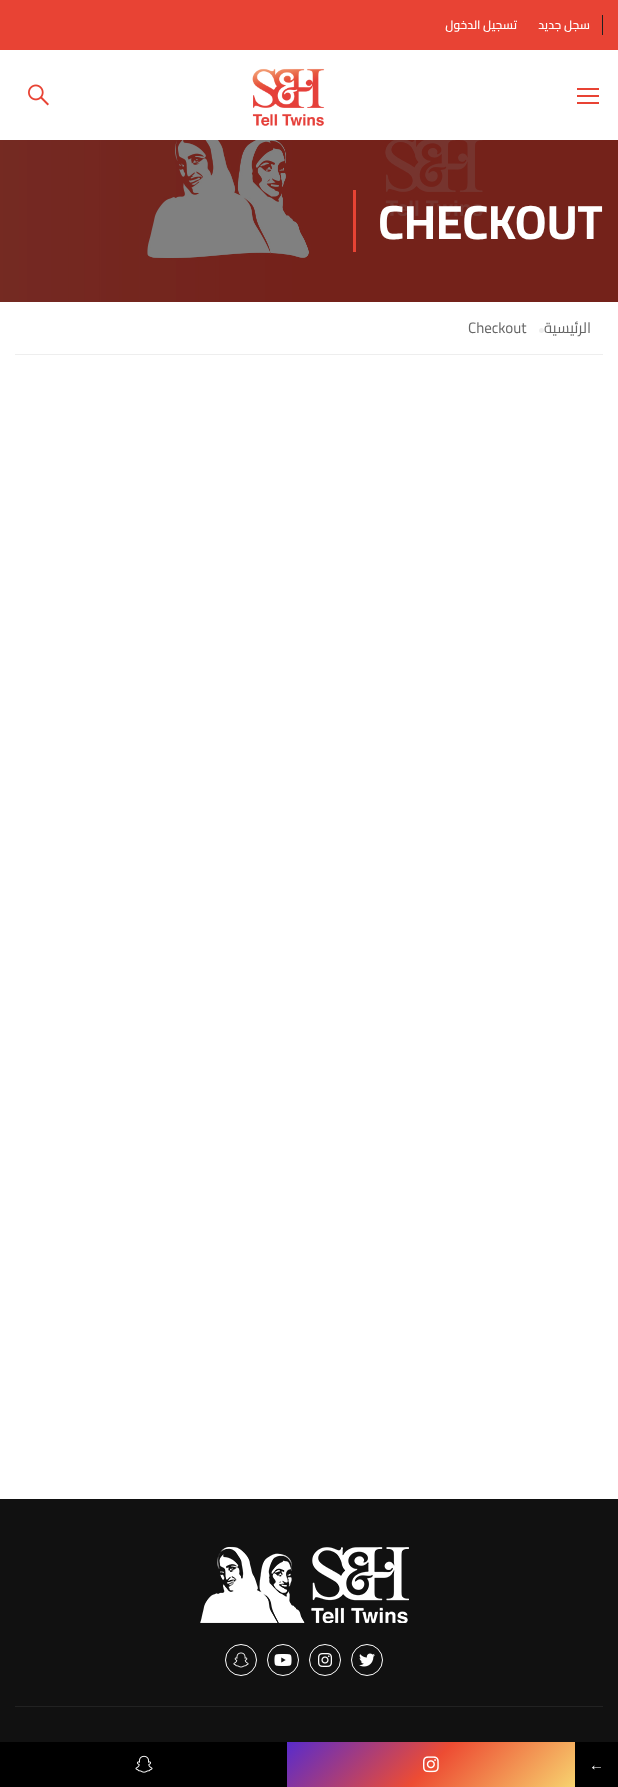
<svg xmlns="http://www.w3.org/2000/svg" width="618" height="1787" viewBox="0 0 618 1787">
  <style>
    .t1 { font: 600 12px Cairo; direction: rtl; fill: #fff; }
    .t2 { font: bold 48px Cairo; fill: #fff; }
    .t3 { font: 15px Cairo; direction: rtl; fill: #666; }
    .t4 { font: 15px Cairo; fill: #666; }
    .t5 { font: 15px Liberation Serif; fill: #fff; }
  </style>
  <defs>
    <linearGradient id="g1" gradientUnits="userSpaceOnUse" x1="348" y1="1681" x2="514" y2="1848"><stop offset="0" stop-color="#582bcd"/><stop offset="0.5" stop-color="#ed4c33"/><stop offset="1" stop-color="#f7d36f"/></linearGradient>
  </defs>
  <rect width="100%" height="100%" fill="#fff"/>
  <rect x="0" y="0" width="618" height="50" fill="#e84334"/>
  <rect x="602" y="15" width="1" height="20" fill="#212121"/>
  <text x="590" y="29" class="t1">سجل جديد</text>
  <text x="517" y="29" class="t1">تسجيل الدخول</text>
  <rect x="577" y="88" width="22" height="2" fill="#e84334"/>
  <rect x="577" y="95" width="22" height="2" fill="#e84334"/>
  <rect x="577" y="102" width="22" height="2" fill="#e84334"/>
  <image x="252" y="68" width="73" height="58" href="images/1.png"/>
  <image x="28" y="84" width="21" height="22" href="images/2.png"/>
  <image x="0" y="140" width="618" height="162" href="images/3.png"/>
  <text x="378" y="239" class="t2">CHECKOUT</text>
  <rect x="353" y="190" width="3" height="62" fill="#e84334"/>
  <rect x="15" y="354" width="588" height="1" fill="#eee"/>
  <text x="591" y="333" class="t3">الرئيسية</text>
  <circle cx="541.5" cy="330.5" r="2.5" fill="#eee"/>
  <text x="468" y="333" class="t4">Checkout</text>
  <rect x="0" y="1499" width="618" height="243" fill="#111"/>
  <image x="200" y="1546" width="209" height="77" href="images/4.png"/>
  <circle cx="367" cy="1660" r="15.5" fill="none" stroke="#fff"/>
  <image x="359" y="1653" width="16" height="14" href="images/5.png"/>
  <circle cx="325" cy="1660" r="15.5" fill="none" stroke="#fff"/>
  <image x="318" y="1653" width="14" height="14" href="images/6.png"/>
  <circle cx="283" cy="1660" r="15.5" fill="none" stroke="#fff"/>
  <image x="274" y="1654" width="18" height="12" href="images/7.png"/>
  <circle cx="241" cy="1660" r="15.5" fill="none" stroke="#fff"/>
  <image x="233" y="1652" width="16" height="16" href="images/8.png"/>
  <rect x="15" y="1706" width="588" height="1" fill="#222"/>
  <rect x="575" y="1742" width="43" height="45" fill="#000"/>
  <text x="589" y="1770" class="t5">←</text>
  <rect x="287" y="1742" width="288" height="45" fill="url(#g1)"/>
  <image x="423" y="1756" width="16" height="17" href="images/9.png"/>
  <rect x="0" y="1742" width="287" height="45" fill="#000"/>
  <image x="135" y="1755" width="18" height="18" href="images/10.png"/>
</svg>
